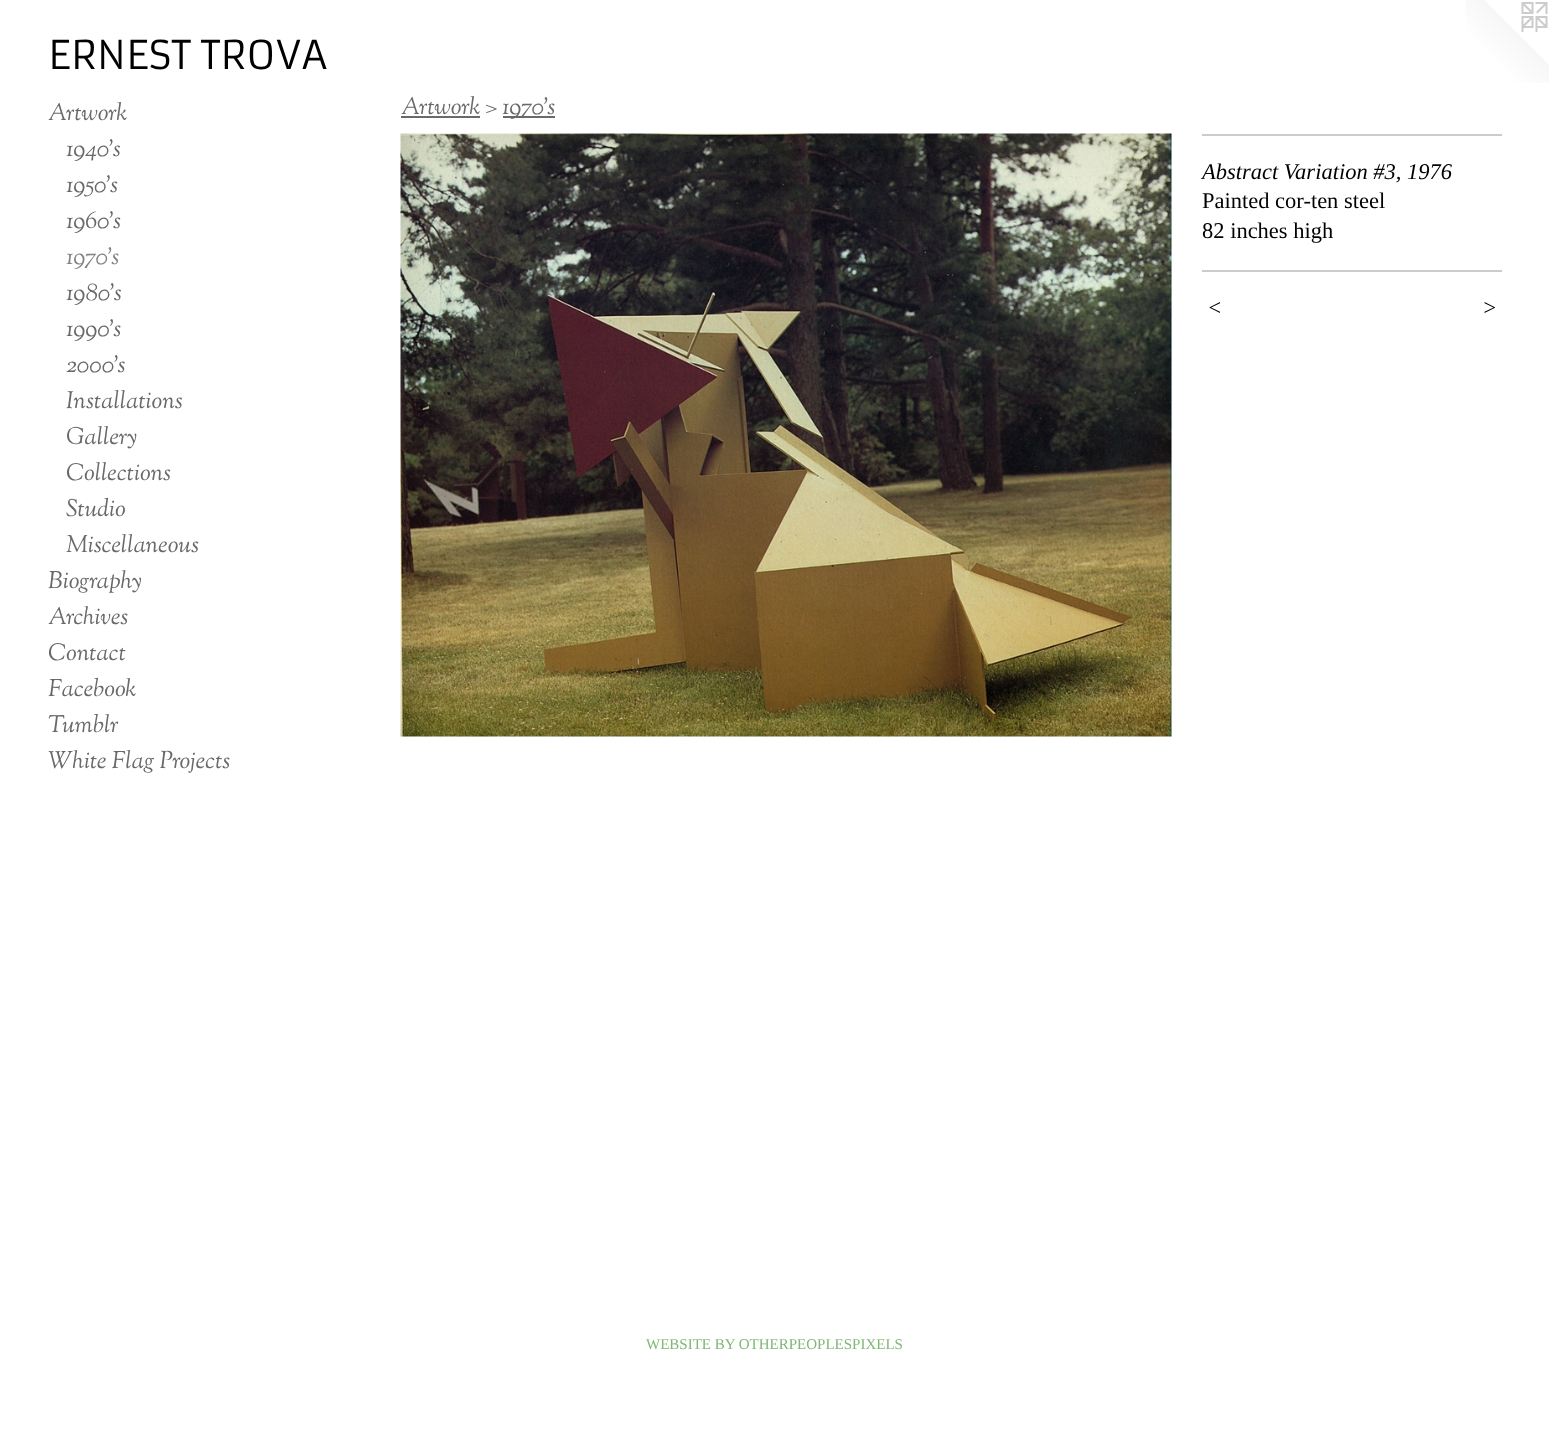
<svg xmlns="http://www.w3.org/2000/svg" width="1549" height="1432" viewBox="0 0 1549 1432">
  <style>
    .t1 { font: 39px Armata; fill: #000; }
    .t2 { font: italic 24px Sorts Mill Goudy; fill: #696969; }
    .t3 { font: italic 24px Sorts Mill Goudy; fill: #838383; }
    .t4 { font: italic 22.5px Liberation Serif; fill: #000; }
    .t5 { font: 22.5px Liberation Serif; fill: #000; }
    .t6 { font: italic 22.5px Liberation Serif; letter-spacing: 2px; fill: #000; }
    .t7 { font: 15px Liberation Serif; fill: #7fb875; }
  </style>
  <rect width="100%" height="100%" fill="#fff"/>
  <text x="48" y="69" class="t1">ERNEST TROVA</text>
  <image x="1466" y="0" width="83" height="83" href="images/1.png"/>
  <text x="48" y="120" class="t2">Artwork</text>
  <text x="66" y="156" class="t2">1940's</text>
  <text x="66" y="192" class="t2">1950's</text>
  <text x="66" y="228" class="t2">1960's</text>
  <text x="66" y="264" class="t3">1970's</text>
  <text x="66" y="300" class="t2">1980's</text>
  <text x="66" y="336" class="t2">1990's</text>
  <text x="66" y="372" class="t2">2000's</text>
  <text x="66" y="408" class="t2">Installations</text>
  <text x="66" y="444" class="t2">Gallery</text>
  <text x="66" y="480" class="t2">Collections</text>
  <text x="66" y="516" class="t2">Studio</text>
  <text x="66" y="552" class="t2">Miscellaneous</text>
  <text x="48" y="588" class="t2">Biography</text>
  <text x="48" y="624" class="t2">Archives</text>
  <text x="48" y="660" class="t2">Contact</text>
  <text x="48" y="696" class="t2">Facebook</text>
  <text x="48" y="732" class="t2">Tumblr</text>
  <text x="48" y="768" class="t2">White Flag Projects</text>
  <text x="401" y="114" class="t2">Artwork &gt;</text>
  <rect x="401" y="116" width="79" height="2" fill="#696969"/>
  <rect x="503" y="116" width="52" height="2" fill="#696969"/>
  <text x="502" y="114" class="t2">1970's</text>
  <image x="400" y="133" width="772" height="604" href="images/2.png"/>
  <rect x="1202" y="134" width="300" height="2" fill="#ccc"/>
  <text x="1202" y="179" class="t4">Abstract Variation #3, 1976</text>
  <text x="1202" y="208" class="t5">Painted cor-ten steel</text>
  <text x="1202" y="238" class="t5">82 inches high</text>
  <rect x="1202" y="270" width="300" height="2" fill="#ccc"/>
  <text x="1207" y="315" class="t6">&lt;</text>
  <text x="1482" y="315" class="t6">&gt;</text>
  <text x="646" y="1349" class="t7">WEBSITE BY OTHERPEOPLESPIXELS</text>
</svg>
